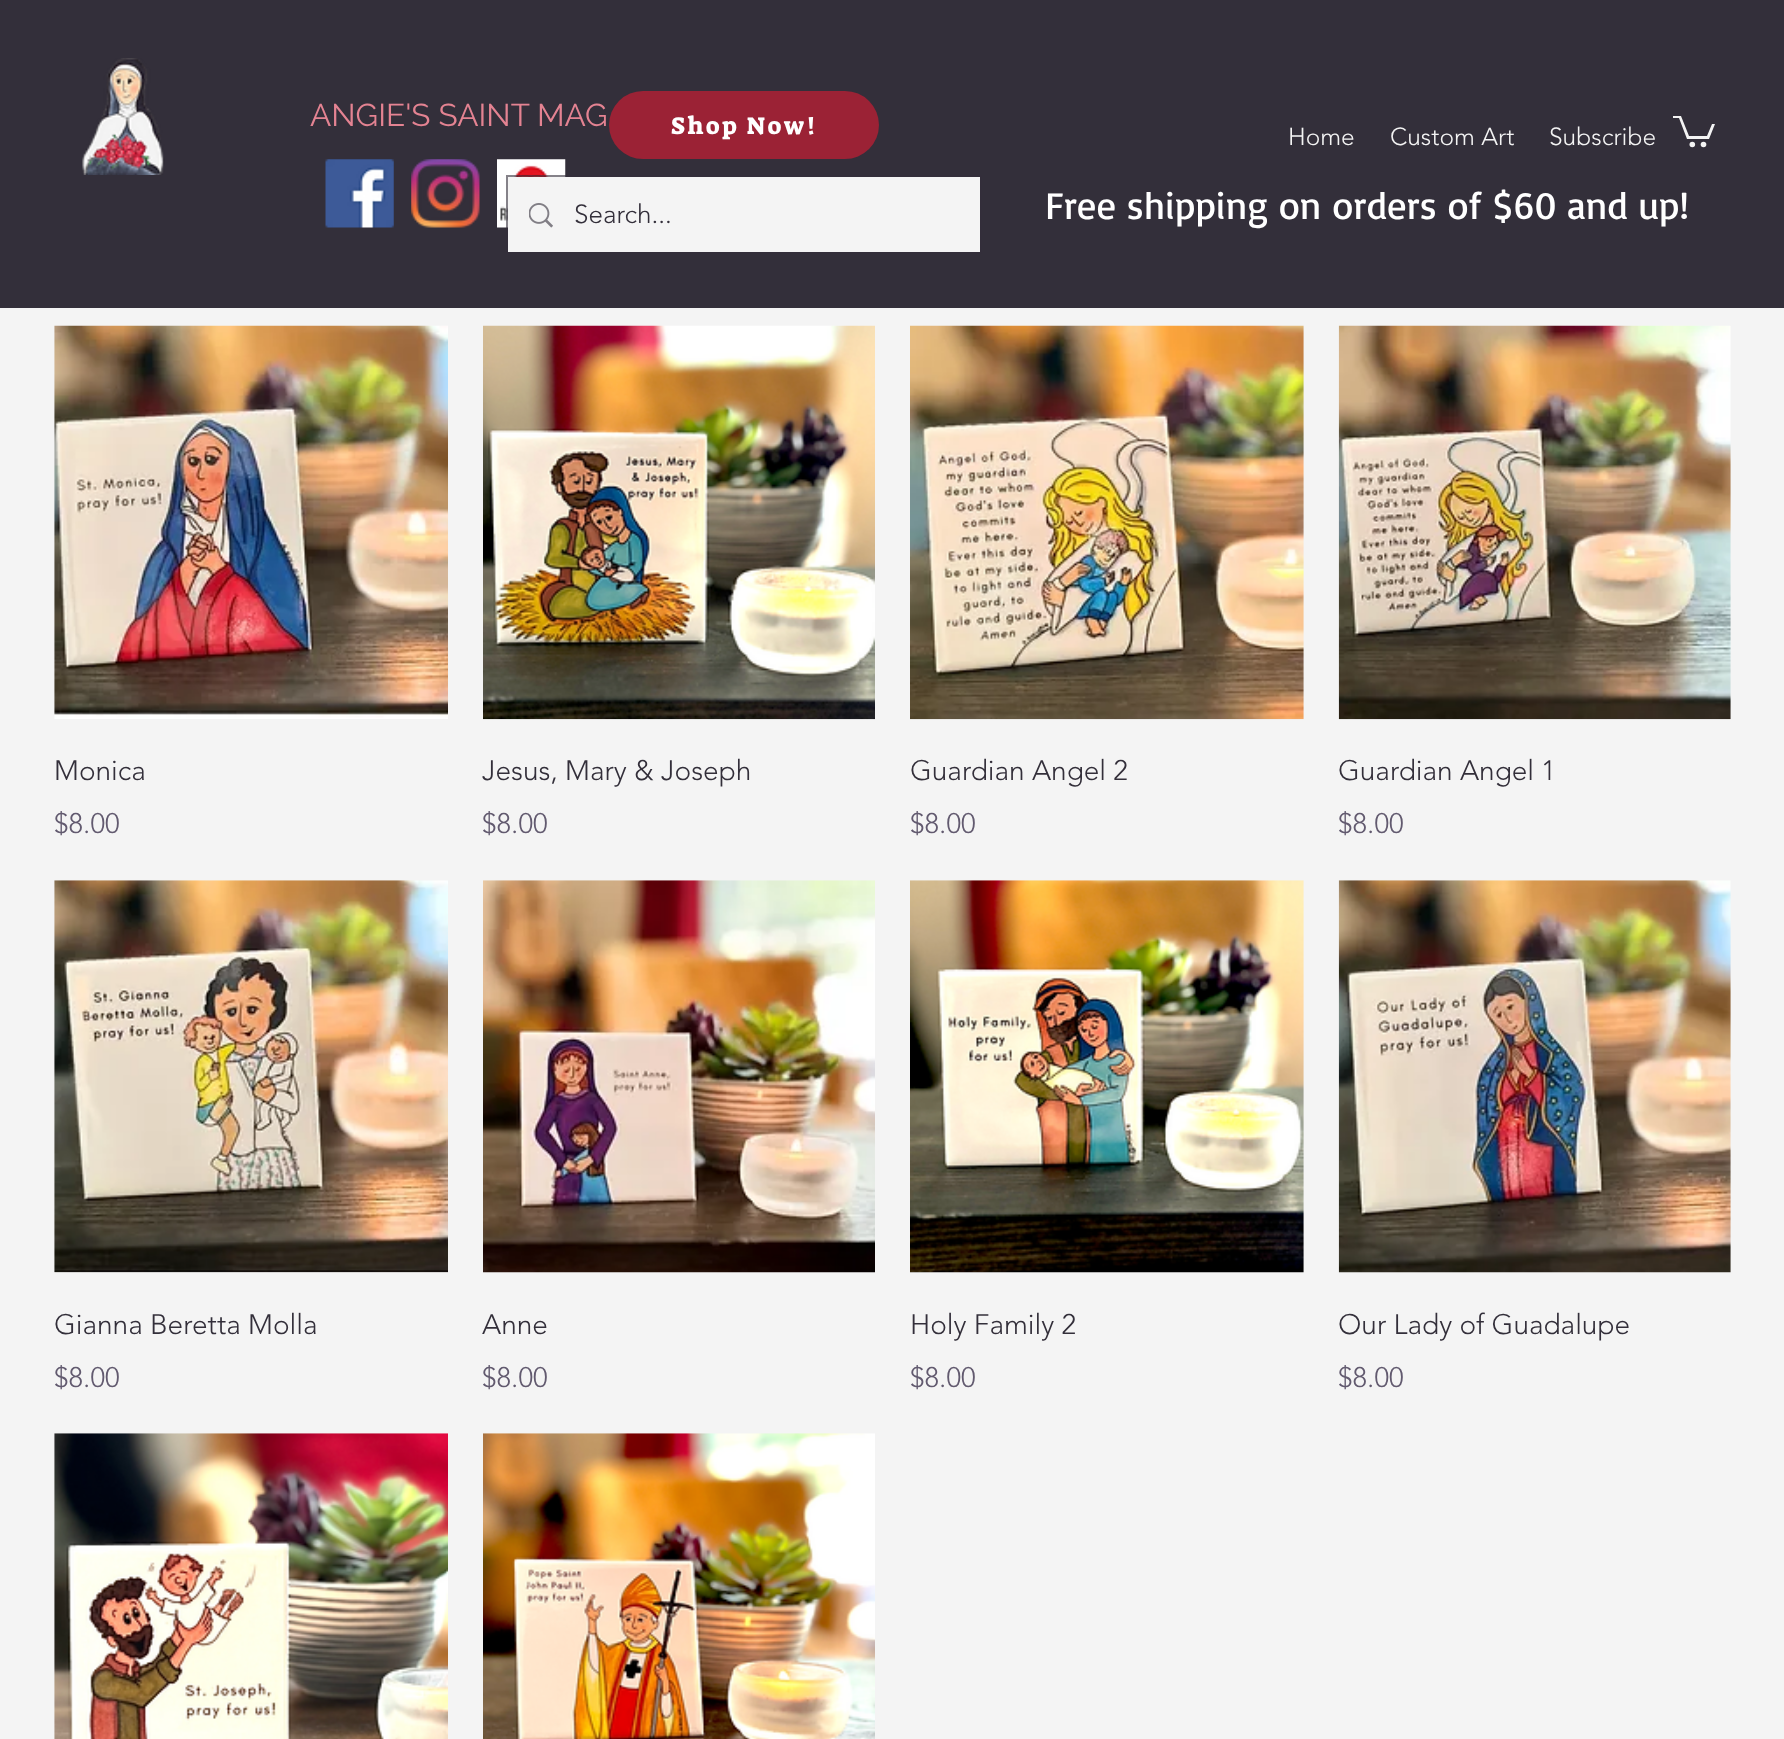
<svg xmlns="http://www.w3.org/2000/svg" width="1784" height="1739" viewBox="0 0 1784 1739">
  <style>
    .t1 { font: 31.5px Raleway; fill: #e48392; }
    .t2 { font: 24.5px Suez One; letter-spacing: 2.5px; fill: #fff; }
    .t3 { font: 300 24.5px 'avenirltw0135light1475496'; fill: #f4f4f4; }
    .t4 { font: 300 26px 'avenirltw0135light1475496'; fill: #332f3a; }
    .t5 { font: 38.5px Basic; fill: #fff; }
    .t6 { font: 300 28px 'avenirltw0135light1475496'; fill: #332f3a; }
    .t7 { font: 300 28px 'avenirltw0135light1475496'; fill: #625a6f; }
  </style>
  <rect width="100%" height="100%" fill="#f4f4f4"/>
  <rect x="0" y="0" width="1784" height="308" fill="#332f3a"/>
  <image x="82" y="58" width="83" height="117" href="images/1.png"/>
  <text x="310" y="126" class="t1">ANGIE'S SAINT MAG</text>
  <image x="325" y="159" width="69" height="69" href="images/2.png"/>
  <image x="411" y="159" width="69" height="69" href="images/3.png"/>
  <image x="497" y="159" width="69" height="69" href="images/4.png"/>
  <rect x="609" y="91" width="270" height="68" rx="34" fill="#9b2235"/>
  <text x="671" y="134" class="t2">Shop Now!</text>
  <text x="1288" y="145" class="t3">Home</text>
  <text x="1390" y="145" class="t3">Custom Art</text>
  <text x="1549" y="145" class="t3">Subscribe</text>
  <path d="M1715 124L1709 139H1687L1679 118H1673V116H1681L1689 136H1707L1712 124" fill="#f4f4f4"/>
  <circle cx="1703.5" cy="144.5" r="2.8" fill="#f4f4f4"/>
  <circle cx="1692.3" cy="144.5" r="2.8" fill="#f4f4f4"/>
  <rect x="507" y="176" width="474" height="77" fill="none" stroke="#332f3a99" stroke-width="2"/>
  <rect x="508" y="177" width="472" height="75" fill="#f4f4f4"/>
  <image x="529" y="203" width="24" height="25" href="images/5.png"/>
  <text x="574" y="223" class="t4">Search...</text>
  <text x="1045" y="219" class="t5">Free shipping on orders of $60 and up!</text>
  <image x="54" y="325" width="394" height="394" href="images/6.png"/>
  <text x="54" y="780" class="t6">Monica</text>
  <text x="54" y="833" class="t7">$8.00</text>
  <image x="483" y="325" width="392" height="395" href="images/7.png"/>
  <text x="482" y="780" class="t6">Jesus, Mary &amp; Joseph</text>
  <text x="482" y="833" class="t7">$8.00</text>
  <image x="910" y="325" width="394" height="395" href="images/8.png"/>
  <text x="910" y="780" class="t6">Guardian Angel 2</text>
  <text x="910" y="833" class="t7">$8.00</text>
  <image x="1338" y="325" width="393" height="395" href="images/9.png"/>
  <text x="1338" y="780" class="t6">Guardian Angel 1</text>
  <text x="1338" y="833" class="t7">$8.00</text>
  <image x="54" y="880" width="394" height="393" href="images/10.png"/>
  <text x="54" y="1334" class="t6">Gianna Beretta Molla</text>
  <text x="54" y="1387" class="t7">$8.00</text>
  <image x="483" y="880" width="392" height="393" href="images/11.png"/>
  <text x="482" y="1334" class="t6">Anne</text>
  <text x="482" y="1387" class="t7">$8.00</text>
  <image x="910" y="880" width="394" height="393" href="images/12.png"/>
  <text x="910" y="1334" class="t6">Holy Family 2</text>
  <text x="910" y="1387" class="t7">$8.00</text>
  <image x="1338" y="880" width="393" height="393" href="images/13.png"/>
  <text x="1338" y="1334" class="t6">Our Lady of Guadalupe</text>
  <text x="1338" y="1387" class="t7">$8.00</text>
  <image x="54" y="1433" width="394" height="306" href="images/14.png"/>
  <image x="483" y="1433" width="392" height="306" href="images/15.png"/>
</svg>
